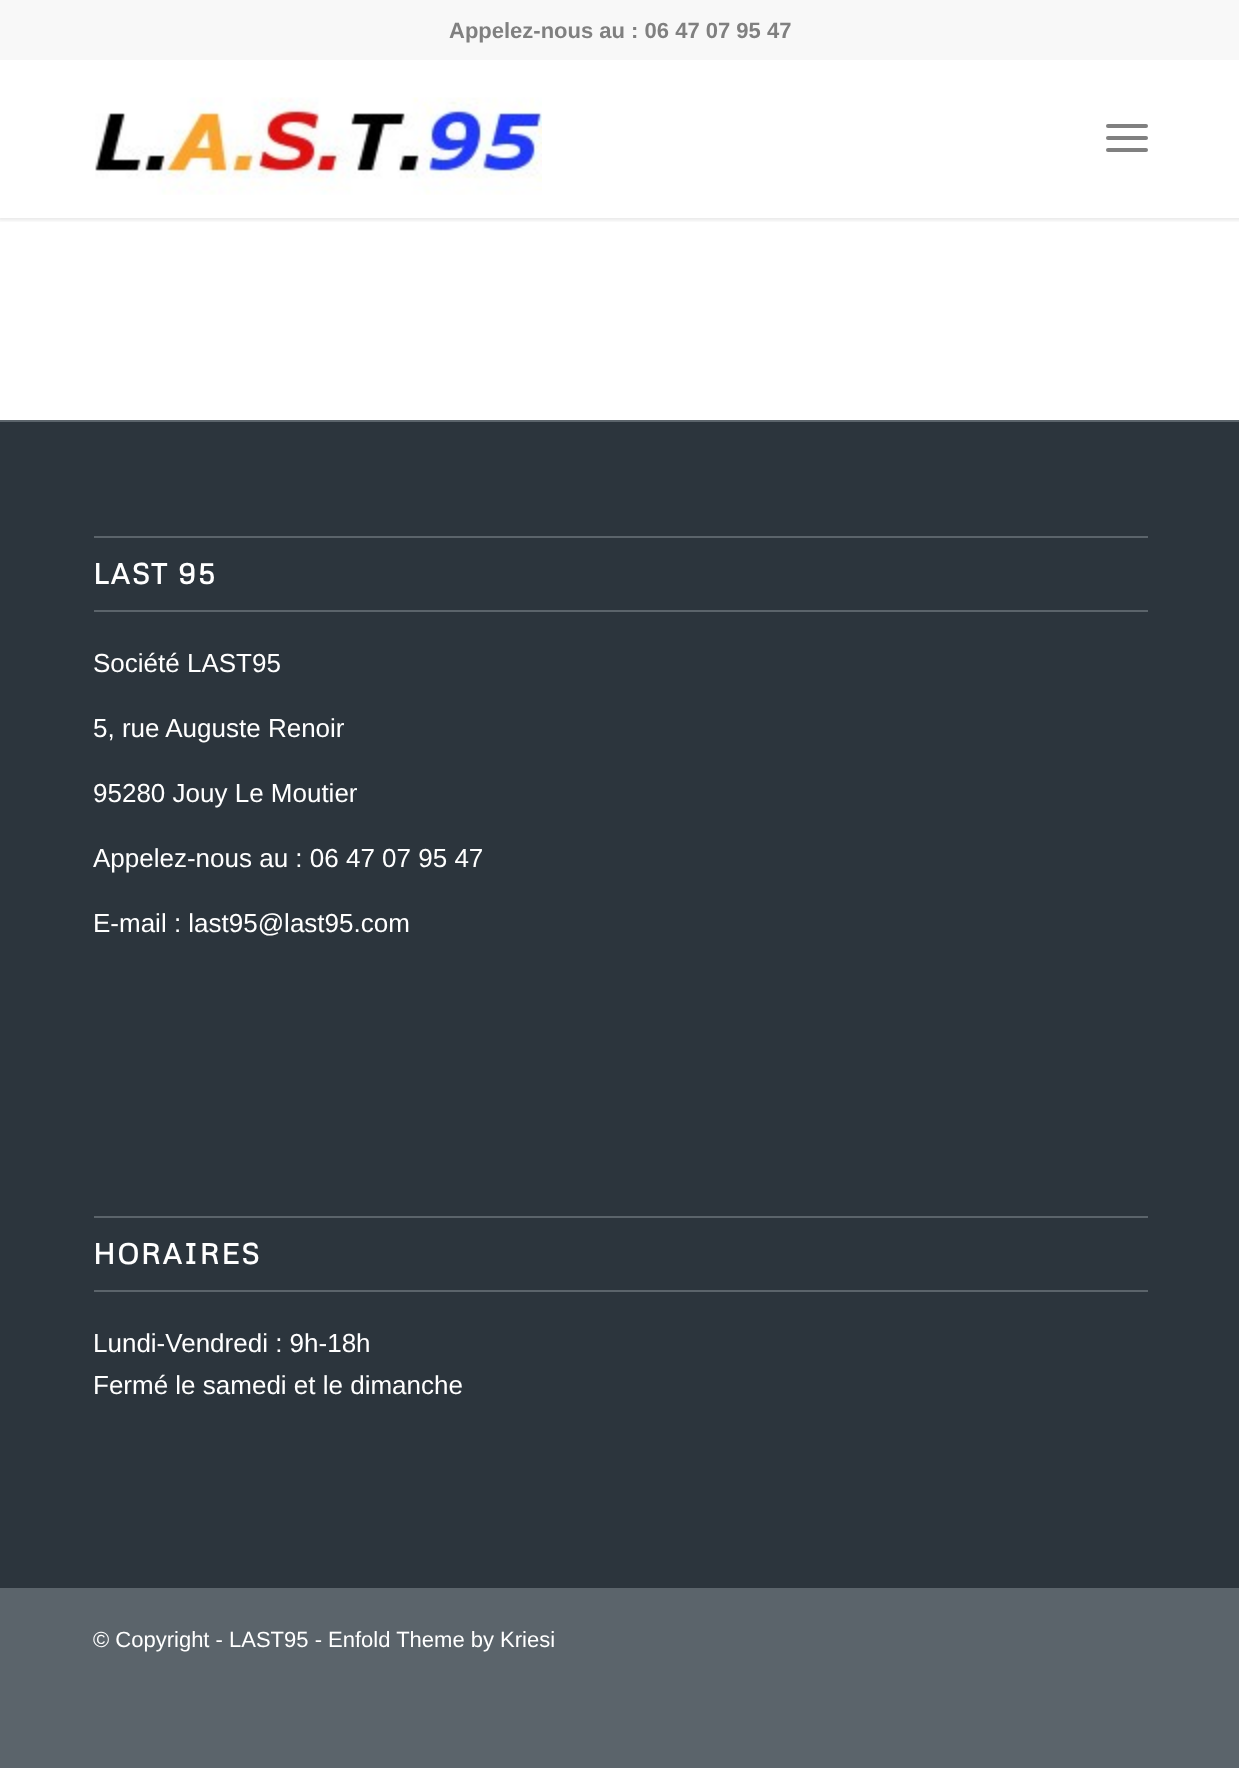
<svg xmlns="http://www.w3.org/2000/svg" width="1239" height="1768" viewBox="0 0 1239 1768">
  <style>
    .t1 { font: bold 22px Liberation Sans; fill: #808080; }
    .t2 { font: bold 28.5px Metrophobic; letter-spacing: 2px; fill: #fff; }
    .t3 { font: 26px Liberation Sans; fill: #fff; }
    .t4 { font: 22px Liberation Sans; fill: #fff; }
  </style>
  <defs>
    <clipPath id="clip1"><rect x="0" y="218" width="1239" height="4"/></clipPath>
  </defs>
  <rect width="100%" height="100%" fill="#5b646b"/>
  <rect x="0" y="60" width="1239" height="360" fill="#fff"/>
  <g clip-path="url(#clip1)">
    <rect x="-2" y="-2" width="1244" height="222" fill="#0000001a" filter="blur(2px)"/>
  </g>
  <rect x="0" y="0" width="1239" height="60" fill="#f8f8f8"/>
  <text x="449" y="38" class="t1">Appelez-nous au : 06 47 07 95 47</text>
  <image x="95" y="97" width="447" height="98" href="images/1.png"/>
  <rect x="1106" y="136" width="42" height="4" rx="2" fill="#808080"/>
  <rect x="1106" y="124" width="42" height="4" rx="2" fill="#808080"/>
  <rect x="1106" y="148" width="42" height="4" rx="2" fill="#808080"/>
  <rect x="0" y="422" width="1239" height="1166" fill="#2c353d"/>
  <rect x="94" y="536" width="1054" height="2" fill="#5b646b"/>
  <rect x="94" y="610" width="1054" height="2" fill="#5b646b"/>
  <text x="93" y="584" class="t2">LAST 95</text>
  <text x="93" y="672" class="t3">Société LAST95</text>
  <text x="93" y="737" class="t3">5, rue Auguste Renoir</text>
  <text x="93" y="802" class="t3">95280 Jouy Le Moutier</text>
  <text x="93" y="867" class="t3">Appelez-nous au : 06 47 07 95 47</text>
  <text x="93" y="932" class="t3">E-mail : last95@last95.com</text>
  <rect x="94" y="1216" width="1054" height="2" fill="#5b646b"/>
  <rect x="94" y="1290" width="1054" height="2" fill="#5b646b"/>
  <text x="93" y="1264" class="t2">HORAIRES</text>
  <text x="93" y="1352" class="t3">Lundi-Vendredi : 9h-18h</text>
  <text x="93" y="1394" class="t3">Fermé le samedi et le dimanche</text>
  <text x="93" y="1647" class="t4">© Copyright - LAST95 - Enfold Theme by Kriesi</text>
</svg>
